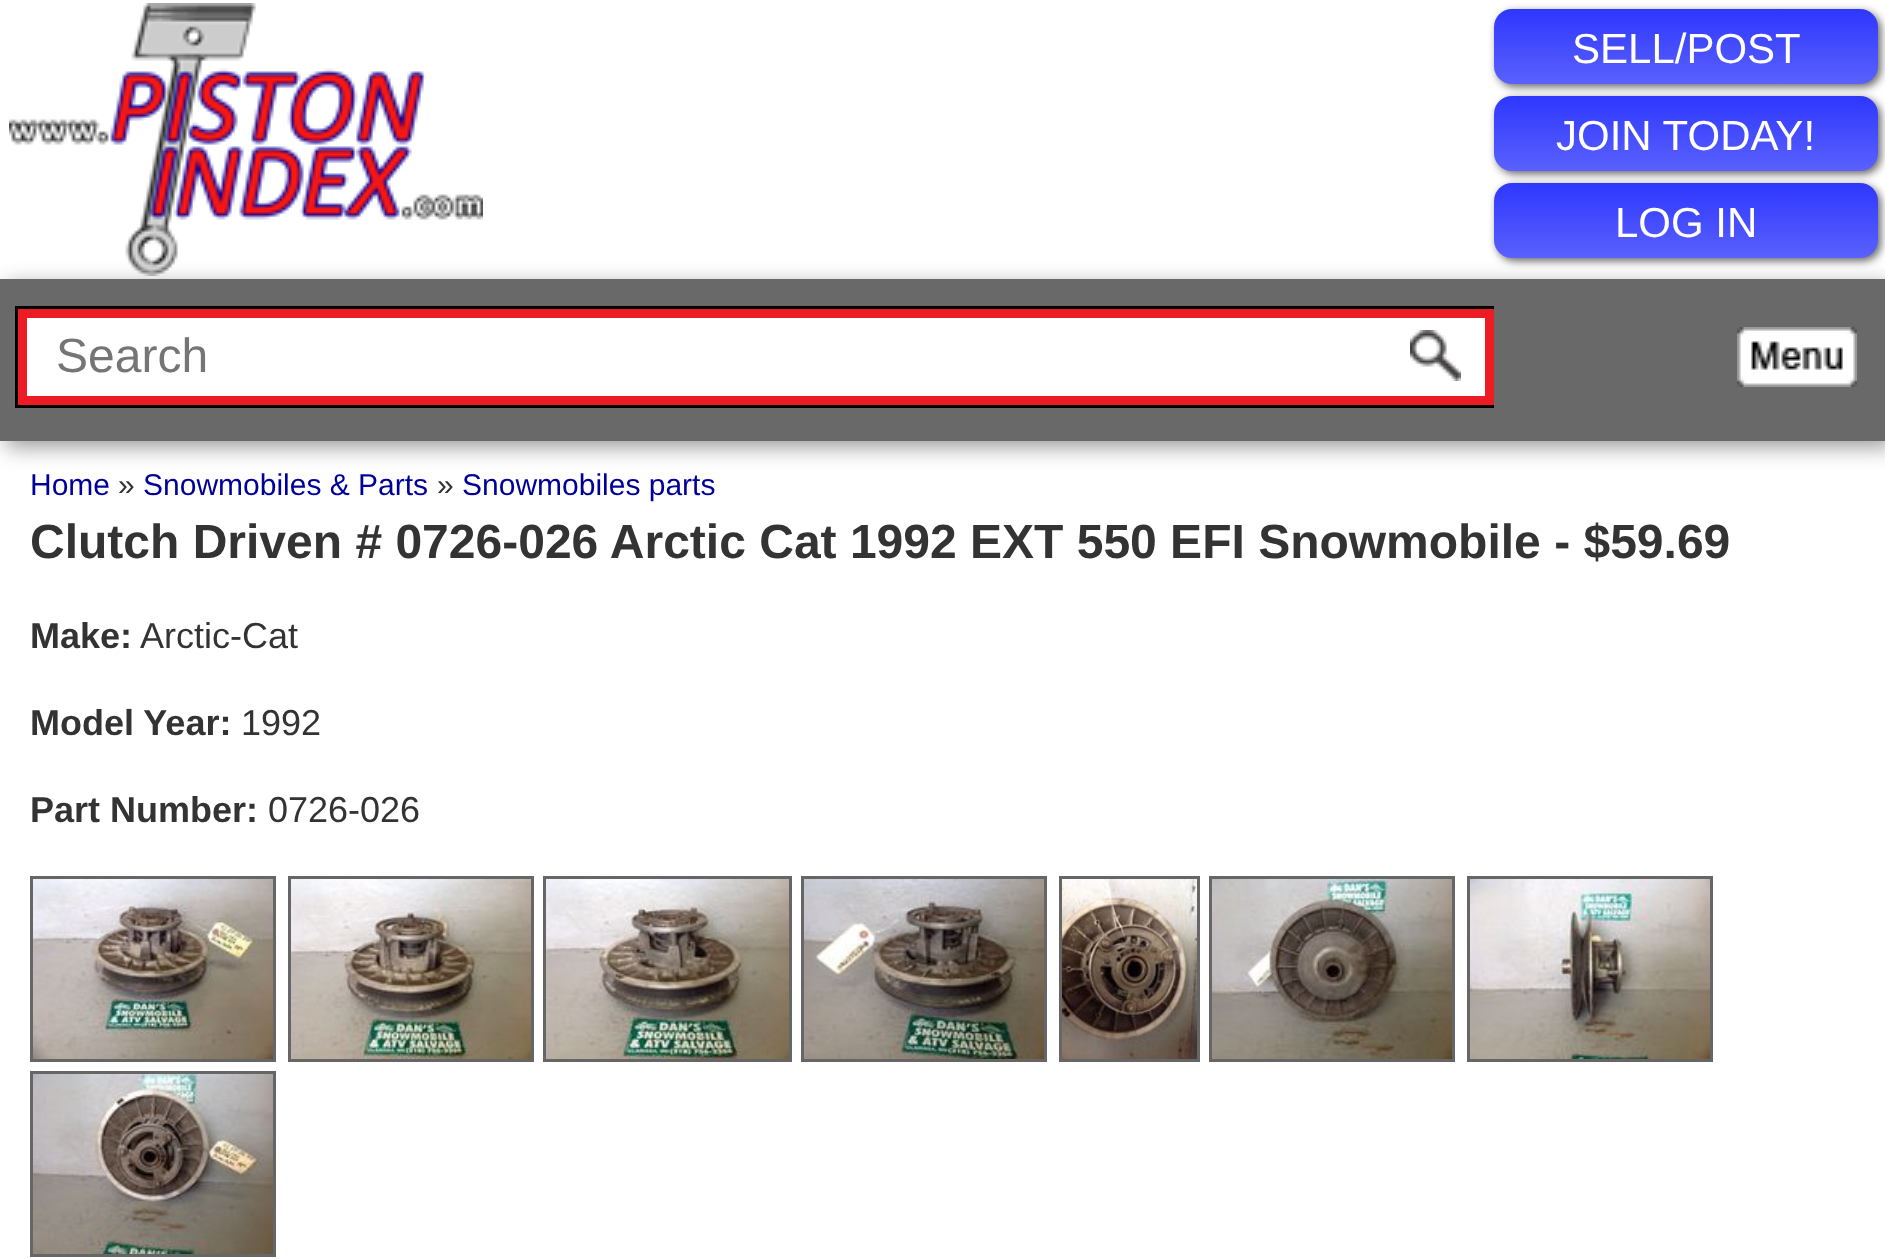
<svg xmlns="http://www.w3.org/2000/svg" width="1885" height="1259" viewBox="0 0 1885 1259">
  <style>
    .t1 { font: 42px Liberation Sans; fill: #fff; }
    .t2 { font: 48px Liberation Sans; fill: #757575; }
    .t3 { font: 30px Liberation Sans; fill: #009; }
    .t4 { font: 30px Liberation Sans; fill: #333; }
    .t5 { font: bold 48px Liberation Sans; fill: #333; }
    .t6 { font: bold 36px Liberation Sans; fill: #333; }
    .t7 { font: 36px Liberation Sans; fill: #333; }
  </style>
  <defs>
    <linearGradient id="g1" gradientUnits="userSpaceOnUse" x1="1686" y1="9" x2="1686" y2="84"><stop offset="0" stop-color="#2e37fe"/><stop offset="1" stop-color="#5a61fd"/></linearGradient>
    <linearGradient id="g2" gradientUnits="userSpaceOnUse" x1="1686" y1="96" x2="1686" y2="171"><stop offset="0" stop-color="#2e37fe"/><stop offset="1" stop-color="#5a61fd"/></linearGradient>
    <linearGradient id="g3" gradientUnits="userSpaceOnUse" x1="1686" y1="183" x2="1686" y2="258"><stop offset="0" stop-color="#2e37fe"/><stop offset="1" stop-color="#5a61fd"/></linearGradient>
  </defs>
  <rect width="100%" height="100%" fill="#fff"/>
  <rect x="6" y="285" width="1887" height="162" fill="#00000066" filter="blur(10.5px)"/>
  <image x="9" y="3" width="474" height="273" href="images/1.png"/>
  <rect x="1497" y="12" width="384" height="75" rx="18" fill="#00000099" filter="blur(4.5px)"/>
  <rect x="1494" y="9" width="384" height="75" rx="18" fill="url(#g1)"/>
  <text x="1572" y="63" class="t1">SELL/POST</text>
  <rect x="1497" y="99" width="384" height="75" rx="18" fill="#00000099" filter="blur(4.5px)"/>
  <rect x="1494" y="96" width="384" height="75" rx="18" fill="url(#g2)"/>
  <text x="1556" y="150" class="t1">JOIN TODAY!</text>
  <rect x="1497" y="186" width="384" height="75" rx="18" fill="#00000099" filter="blur(4.5px)"/>
  <rect x="1494" y="183" width="384" height="75" rx="18" fill="url(#g3)"/>
  <text x="1615" y="237" class="t1">LOG IN</text>
  <rect x="0" y="279" width="1885" height="162" fill="#696969"/>
  <rect x="16.5" y="307.5" width="1476" height="99" fill="none" stroke="#000" stroke-width="3"/>
  <rect x="22.5" y="313.5" width="1467" height="87" fill="#fff" stroke="#ed1c24" stroke-width="9"/>
  <text x="56" y="372" class="t2">Search</text>
  <image x="1410" y="330" width="51" height="51" href="images/2.png"/>
  <image x="1737" y="327" width="120" height="60" href="images/3.png"/>
  <text x="30" y="495" class="t3">Home</text>
  <text x="118" y="495" class="t4">»</text>
  <text x="143" y="495" class="t3">Snowmobiles &amp; Parts</text>
  <text x="437" y="495" class="t4">»</text>
  <text x="462" y="495" class="t3">Snowmobiles parts</text>
  <text x="30" y="558" class="t5">Clutch Driven # 0726-026 Arctic Cat 1992 EXT 550 EFI Snowmobile - $59.69</text>
  <text x="30" y="648" class="t6">Make:</text>
  <text x="140" y="648" class="t7">Arctic-Cat</text>
  <text x="30" y="735" class="t6">Model Year:</text>
  <text x="241" y="735" class="t7">1992</text>
  <text x="30" y="822" class="t6">Part Number:</text>
  <text x="268" y="822" class="t7">0726-026</text>
  <rect x="31.5" y="877.5" width="243" height="183" fill="none" stroke="#666" stroke-width="3"/>
  <rect x="289.5" y="877.5" width="243" height="183" fill="none" stroke="#666" stroke-width="3"/>
  <rect x="544.5" y="877.5" width="246" height="183" fill="none" stroke="#666" stroke-width="3"/>
  <rect x="802.5" y="877.5" width="243" height="183" fill="none" stroke="#666" stroke-width="3"/>
  <rect x="1060.5" y="877.5" width="138" height="183" fill="none" stroke="#666" stroke-width="3"/>
  <rect x="1210.5" y="877.5" width="243" height="183" fill="none" stroke="#666" stroke-width="3"/>
  <rect x="1468.5" y="877.5" width="243" height="183" fill="none" stroke="#666" stroke-width="3"/>
  <image x="33" y="879" width="240" height="180" href="images/4.png"/>
  <image x="291" y="879" width="240" height="180" href="images/5.png"/>
  <image x="546" y="879" width="243" height="180" href="images/6.png"/>
  <image x="804" y="879" width="240" height="180" href="images/7.png"/>
  <image x="1062" y="879" width="135" height="180" href="images/8.png"/>
  <image x="1212" y="879" width="240" height="180" href="images/9.png"/>
  <image x="1470" y="879" width="240" height="180" href="images/10.png"/>
  <rect x="31.5" y="1072.5" width="243" height="183" fill="none" stroke="#666" stroke-width="3"/>
  <image x="33" y="1074" width="240" height="180" href="images/11.png"/>
</svg>
